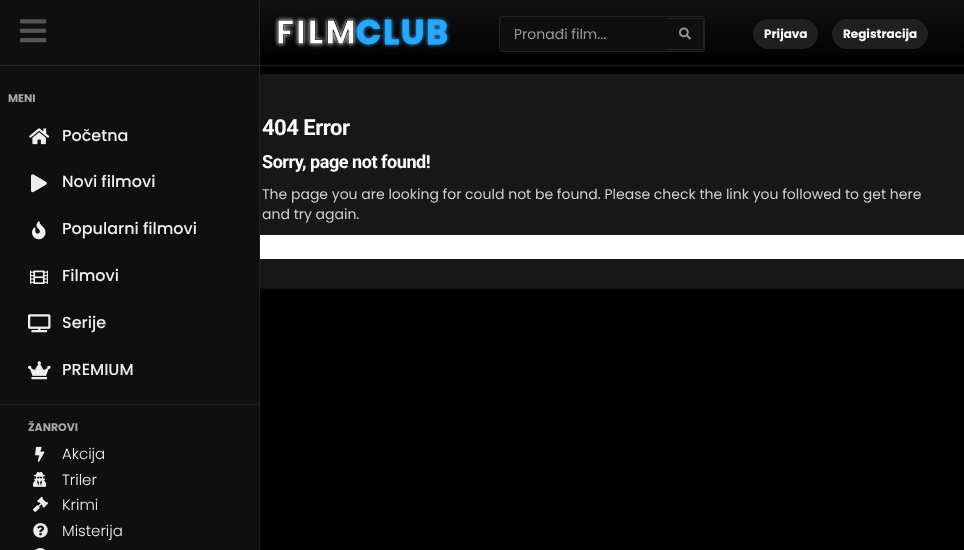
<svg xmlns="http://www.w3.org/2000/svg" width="964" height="550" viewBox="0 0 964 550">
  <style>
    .t1 { font: 14px Poppins; fill: #999; }
    .t2 { font: bold 12px Poppins; fill: #fff; }
    .t3 { font: bold 11px Poppins; fill: #aaa; }
    .t4 { font: 500 16px Poppins; fill: #eee; }
    .t5 { font: 300 15px Poppins; fill: #eee; }
    .t6 { font: bold 22px Roboto; letter-spacing: -0.5px; fill: #fff; }
    .t7 { font: bold 18px Roboto; letter-spacing: -0.45px; fill: #fff; }
    .t8 { font: 14px Poppins; fill: #cfcfcf; }
  </style>
  <defs>
    <linearGradient id="g1" gradientUnits="userSpaceOnUse" x1="602" y1="0" x2="602" y2="65"><stop offset="0" stop-color="#111"/><stop offset="1" stop-color="#000"/></linearGradient>
  </defs>
  <rect width="100%" height="100%" fill="#000"/>
  <rect x="260" y="0" width="704" height="55" fill="url(#g1)"/>
  <rect x="260" y="65" width="704" height="1" fill="#222"/>
  <image x="274" y="15" width="177" height="34" href="images/1.png"/>
  <rect x="499.5" y="16.5" width="205" height="35" rx="2.5" fill="#0f0f0f" stroke="#222"/>
  <text x="514" y="39" class="t1">Pronađi film...</text>
  <path d="M667 18H701C702.5 18 704 19.5 704 21V47C704 48.5 702.5 50 701 50H667ZM667 19H701C702 19 703 20 703 21V47C703 48 702 49 701 49H667Z" fill="#222" fill-rule="evenodd"/>
  <image x="679" y="27" width="12" height="13" href="images/2.png"/>
  <rect x="753.5" y="19.5" width="64" height="29" rx="14.5" fill="#1f1f1f" stroke="#222"/>
  <text x="764" y="38" class="t2">Prijava</text>
  <rect x="832.5" y="19.5" width="95" height="29" rx="14.5" fill="#1f1f1f" stroke="#222"/>
  <text x="843" y="38" class="t2">Registracija</text>
  <rect x="0" y="0" width="259" height="550" fill="#0f0f0f"/>
  <rect x="259" y="0" width="1" height="550" fill="#222"/>
  <rect x="0" y="65" width="259" height="1" fill="#222"/>
  <image x="20" y="19" width="27" height="24" href="images/3.png"/>
  <text x="8" y="102" class="t3">MENI</text>
  <image x="29" y="128" width="21" height="17" href="images/4.png"/>
  <text x="62" y="141" class="t4">Početna</text>
  <image x="31" y="174" width="16" height="19" href="images/5.png"/>
  <text x="62" y="187" class="t4">Novi filmovi</text>
  <image x="32" y="221" width="14" height="19" href="images/6.png"/>
  <text x="62" y="234" class="t4">Popularni filmovi</text>
  <image x="30" y="270" width="18" height="14" href="images/7.png"/>
  <text x="62" y="281" class="t4">Filmovi</text>
  <image x="28" y="314" width="23" height="19" href="images/8.png"/>
  <text x="62" y="328" class="t4">Serije</text>
  <image x="28" y="361" width="23" height="19" href="images/9.png"/>
  <text x="62" y="375" class="t4">PREMIUM</text>
  <rect x="0" y="404" width="259" height="1" fill="#222"/>
  <text x="28" y="431" class="t3">ŽANROVI</text>
  <image x="35" y="446" width="10" height="16" href="images/10.png"/>
  <text x="62" y="459" class="t5">Akcija</text>
  <image x="33" y="471" width="14" height="16" href="images/11.png"/>
  <text x="62" y="485" class="t5">Triler</text>
  <image x="33" y="496" width="15" height="16" href="images/12.png"/>
  <text x="62" y="510" class="t5">Krimi</text>
  <image x="33" y="523" width="15" height="15" href="images/13.png"/>
  <text x="62" y="536" class="t5">Misterija</text>
  <image x="35" y="548" width="10" height="2" href="images/14.png"/>
  <rect x="260" y="74" width="704" height="215" fill="#171717"/>
  <text x="262" y="135" class="t6">404 Error</text>
  <text x="262" y="168" class="t7">Sorry, page not found!</text>
  <text x="262" y="199" class="t8">The page you are looking for could not be found. Please check the link you followed to get here</text>
  <text x="262" y="219" class="t8">and try again.</text>
  <rect x="260" y="235" width="704" height="24" fill="#fff"/>
  <rect x="260" y="234" width="704" height="1" fill="#222"/>
</svg>
